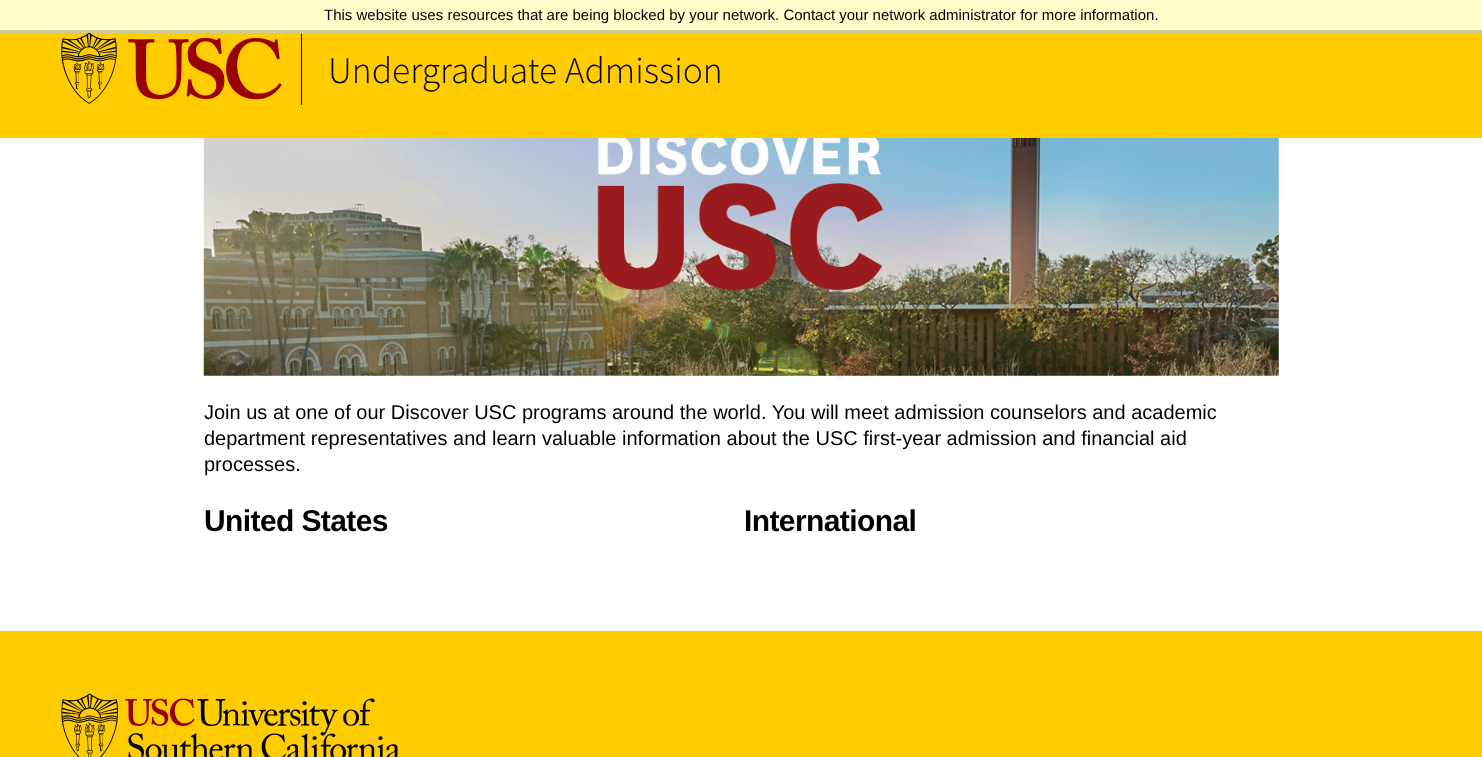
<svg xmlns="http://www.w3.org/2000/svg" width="1482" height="757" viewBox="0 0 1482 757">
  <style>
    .t1 { font: 15px Liberation Sans; fill: #000; }
    .t2 { font: 300 37.5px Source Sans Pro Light; fill: #000; }
    .t3 { font: 20px Liberation Sans; fill: #000; }
    .t4 { font: bold 30px Liberation Sans; letter-spacing: -0.6px; fill: #000; }
  </style>
  <rect width="100%" height="100%" fill="#fff"/>
  <rect x="0" y="0" width="1482" height="30" fill="#ffc"/>
  <rect x="0" y="30" width="1482" height="3" fill="#cc9"/>
  <text x="324" y="20" class="t1">This website uses resources that are being blocked by your network. Contact your network administrator for more information.</text>
  <rect x="0" y="33" width="1482" height="105" fill="#fc0"/>
  <image x="61" y="33" width="221" height="71" href="images/1.png"/>
  <rect x="301" y="34" width="1" height="71" fill="#000"/>
  <text x="328" y="83" class="t2">Undergraduate Admission</text>
  <image x="203" y="138" width="1076" height="238" href="images/2.png"/>
  <text x="204" y="419" class="t3">Join us at one of our Discover USC programs around the world. You will meet admission counselors and academic</text>
  <text x="204" y="445" class="t3">department representatives and learn valuable information about the USC first-year admission and financial aid</text>
  <text x="204" y="471" class="t3">processes.</text>
  <text x="204" y="531" class="t4">United States</text>
  <text x="744" y="531" class="t4">International</text>
  <rect x="0" y="631" width="1482" height="126" fill="#fc0"/>
  <image x="61" y="693" width="337" height="64" href="images/3.png"/>
</svg>
